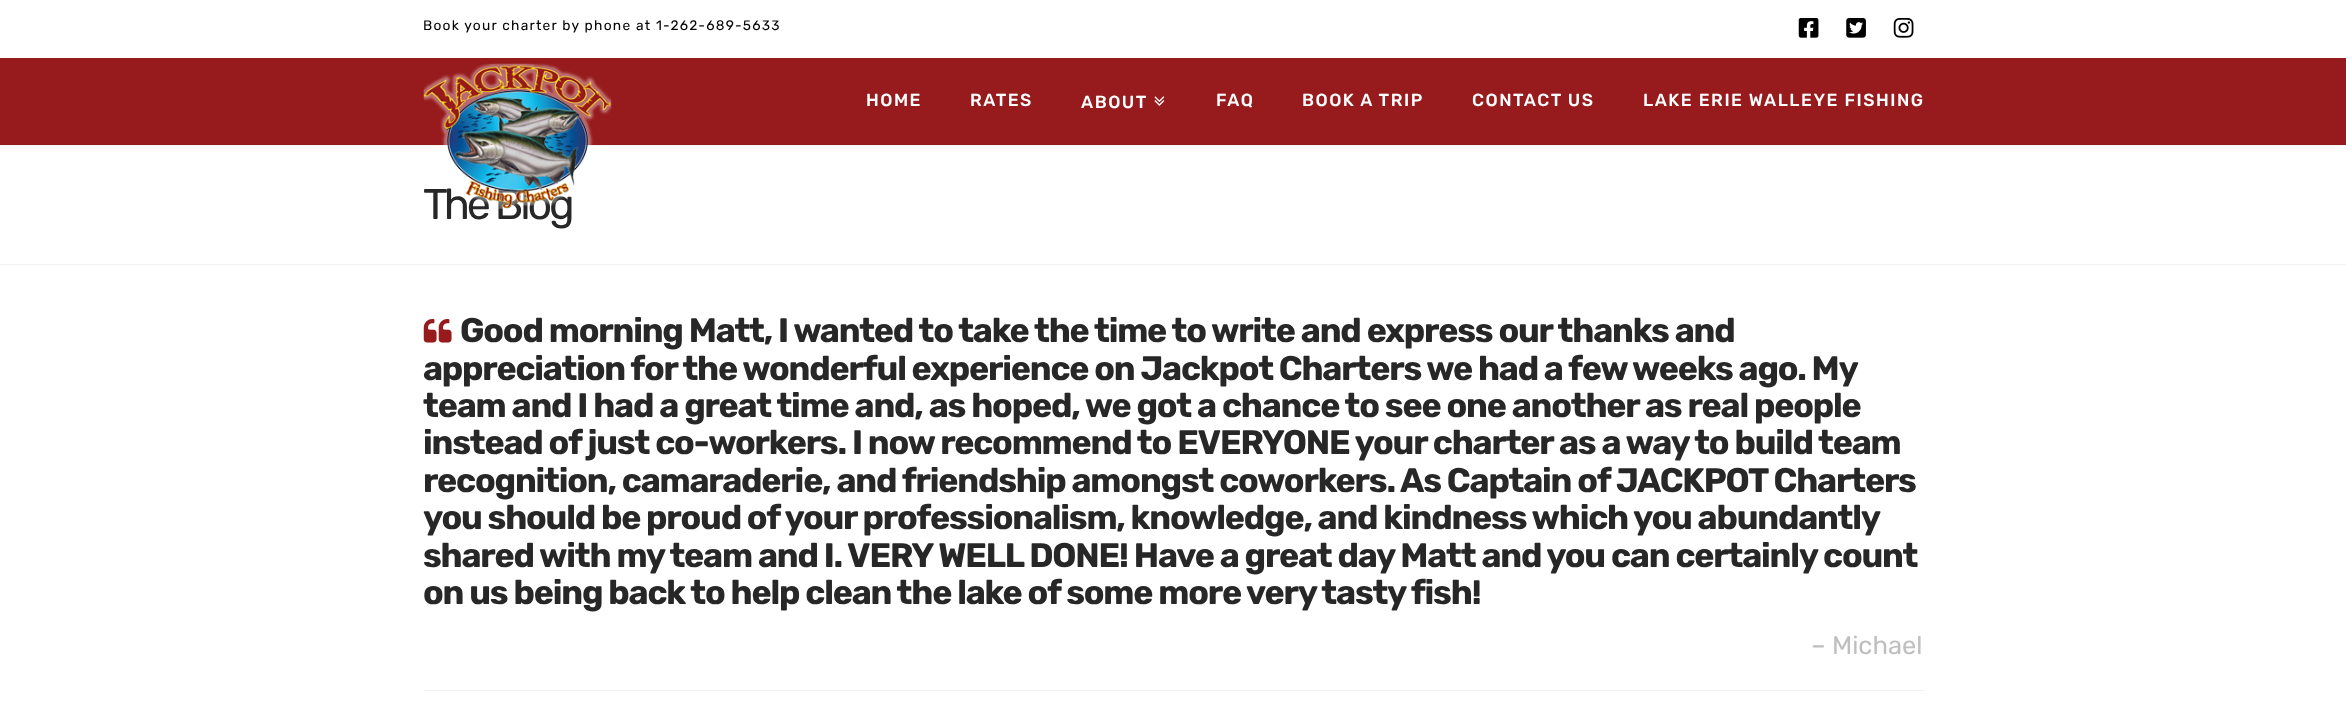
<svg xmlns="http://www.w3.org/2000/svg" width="2346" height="706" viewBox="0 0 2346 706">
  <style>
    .t1 { font: 13.75px Rubik; letter-spacing: 1.25px; fill: #000; }
    .t2 { font: 43px Rubik; letter-spacing: -3.25px; fill: #272727; }
    .t3 { font: 500 17.5px Rubik; letter-spacing: 1.5px; fill: #fff; }
    .t4 { font: bold 34px Rubik; letter-spacing: -1.2px; fill: #272727; }
    .t5 { font: 25.5px Rubik; fill: #bfbfbf; }
  </style>
  <rect width="100%" height="100%" fill="#fff"/>
  <text x="423" y="30" class="t1">Book your charter by phone at 1-262-689-5633</text>
  <image x="1798" y="18" width="21" height="20" href="images/1.png"/>
  <image x="1846" y="18" width="20" height="20" href="images/2.png"/>
  <image x="1893" y="18" width="21" height="20" href="images/3.png"/>
  <rect x="0" y="58" width="2346" height="87" fill="#971b1d"/>
  <rect x="0" y="145" width="2346" height="1" fill="#f2f2f2"/>
  <text x="423" y="219" class="t2">The Blog</text>
  <image x="423" y="63" width="189" height="146" href="images/4.png"/>
  <text x="866" y="106" class="t3">HOME</text>
  <text x="970" y="106" class="t3">RATES</text>
  <text x="1081" y="108" class="t3">ABOUT</text>
  <image x="1154" y="96" width="11" height="10" href="images/5.png"/>
  <text x="1216" y="106" class="t3">FAQ</text>
  <text x="1302" y="106" class="t3">BOOK A TRIP</text>
  <text x="1472" y="106" class="t3">CONTACT US</text>
  <text x="1643" y="106" class="t3">LAKE ERIE WALLEYE FISHING</text>
  <rect x="0" y="264" width="2346" height="1" fill="#f2f2f2"/>
  <rect x="424" y="690" width="1500" height="1" fill="#f2f2f2"/>
  <image x="423" y="319" width="29" height="24" href="images/6.png"/>
  <text x="460" y="342" class="t4">Good morning Matt, I wanted to take the time to write and express our thanks and</text>
  <text x="423" y="380" word-spacing="-0.1" class="t4">appreciation for the wonderful experience on Jackpot Charters we had a few weeks ago. My</text>
  <text x="423" y="417" class="t4">team and I had a great time and, as hoped, we got a chance to see one another as real people</text>
  <text x="423" y="454" class="t4">instead of just co-workers. I now recommend to EVERYONE your charter as a way to build team</text>
  <text x="423" y="492" class="t4">recognition, camaraderie, and friendship amongst coworkers. As Captain of JACKPOT Charters</text>
  <text x="423" y="529" word-spacing="-0.1" class="t4">you should be proud of your professionalism, knowledge, and kindness which you abundantly</text>
  <text x="423" y="567" class="t4">shared with my team and I. VERY WELL DONE! Have a great day Matt and you can certainly count</text>
  <text x="423" y="604" class="t4">on us being back to help clean the lake of some more very tasty fish!</text>
  <text x="1811" y="654" class="t5">– Michael</text>
</svg>
